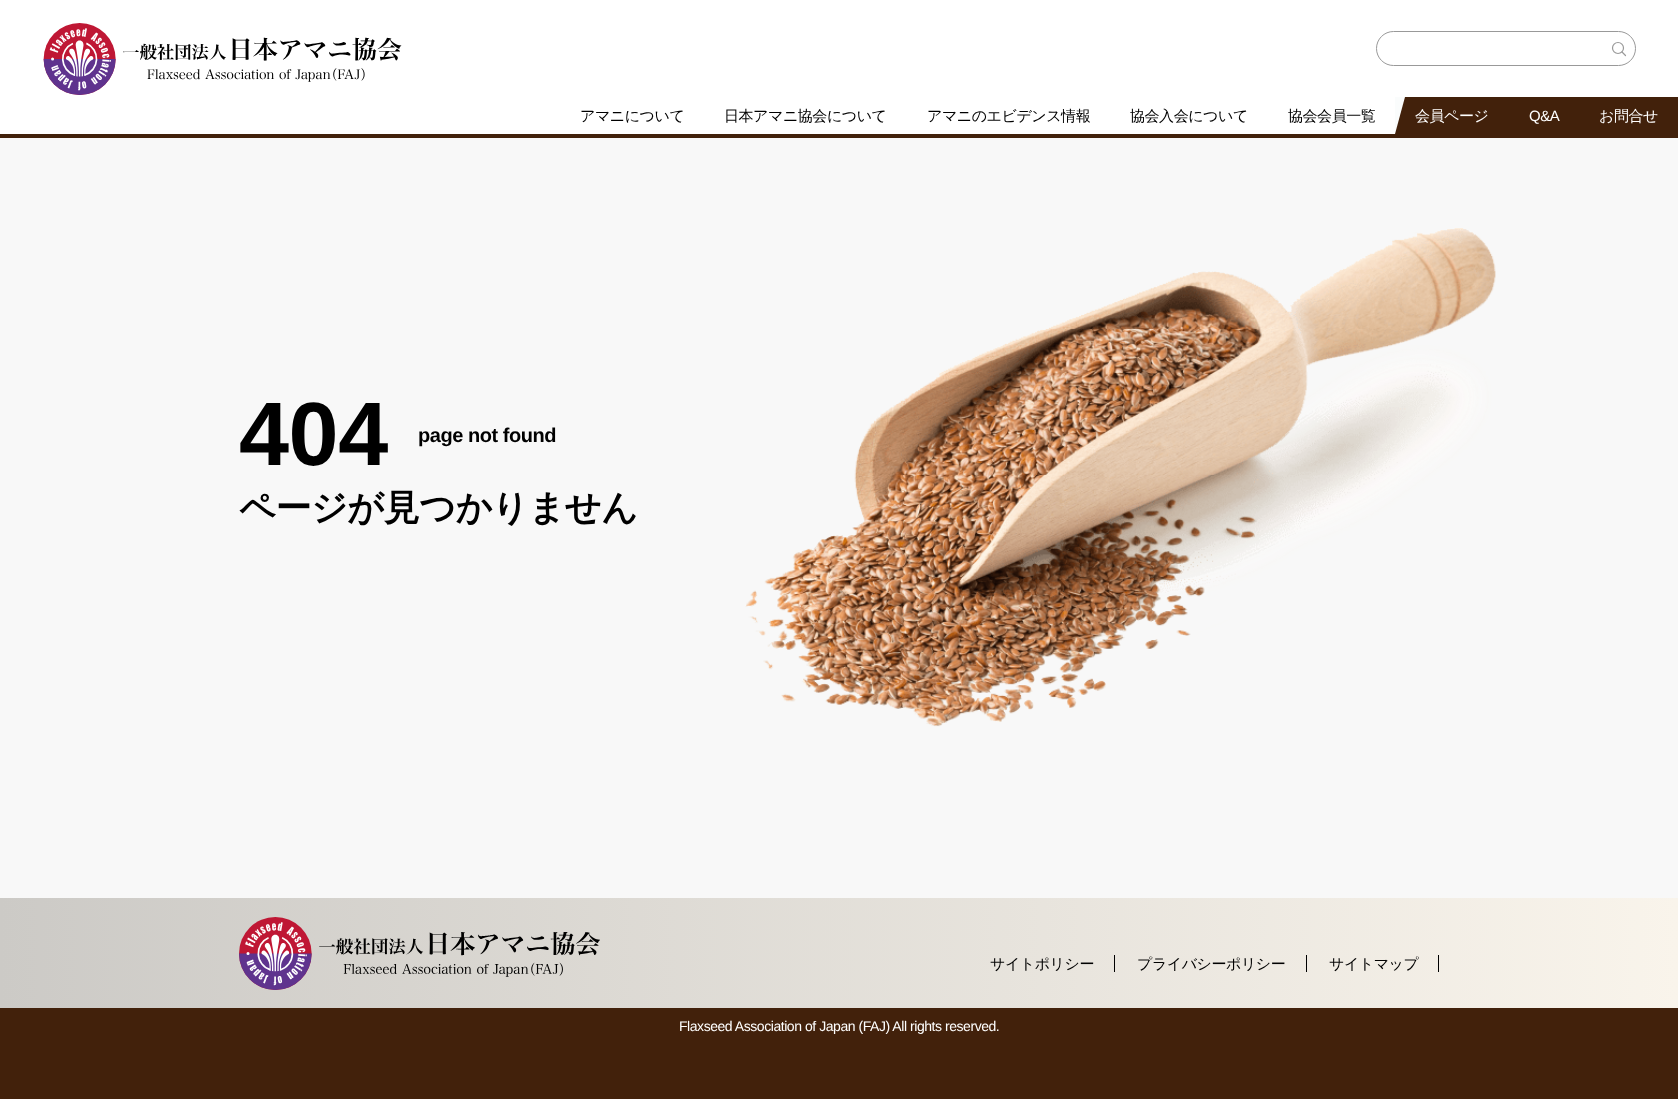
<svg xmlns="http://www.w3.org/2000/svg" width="1678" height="1099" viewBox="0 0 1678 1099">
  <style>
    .t1 { font: 500 15px WenQuanYi Zen Hei; letter-spacing: -0.45px; fill: #000; }
    .t2 { font: 500 15px WenQuanYi Zen Hei; letter-spacing: -0.45px; fill: #fff; }
    .t3 { font: 15px Liberation Sans; letter-spacing: -0.45px; fill: #fff; }
    .t4 { font: bold 90px Liberation Sans; letter-spacing: -0.45px; fill: #000; }
    .t5 { font: bold 20px Liberation Sans; letter-spacing: -0.45px; fill: #000; }
    .t6 { font: bold 36px WenQuanYi Zen Hei; letter-spacing: -0.45px; fill: #000; }
    .t7 { font: 14px Liberation Sans; letter-spacing: -0.45px; fill: #fff; }
  </style>
  <defs>
    <linearGradient id="g1" gradientUnits="userSpaceOnUse" x1="0" y1="953" x2="1678" y2="953"><stop offset="0" stop-color="#cccac6"/><stop offset="1" stop-color="#f9f4eb"/></linearGradient>
  </defs>
  <rect width="100%" height="100%" fill="#42210b"/>
  <rect x="0" y="0" width="1678" height="97" fill="#fff"/>
  <image x="43" y="23" width="359" height="72" href="images/1.png"/>
  <rect x="1376.5" y="31.5" width="259" height="34" rx="17" fill="none" stroke="#999"/>
  <circle cx="1618" cy="48" r="5.5" fill="none" stroke="#999" stroke-width="1.2"/>
  <path d="M1625.5 55.5L1622 52" fill="none" stroke="#999" stroke-width="1.2" stroke-linecap="round"/>
  <rect x="0" y="97" width="1395" height="37" fill="#fff"/>
  <text x="580" y="121" class="t1">アマニについて</text>
  <text x="724" y="121" class="t1">日本アマニ協会について</text>
  <text x="927" y="121" class="t1">アマニのエビデンス情報</text>
  <text x="1130" y="121" class="t1">協会入会について</text>
  <text x="1288" y="121" class="t1">協会会員一覧</text>
  <path d="M1395 134V97H1405Z" fill="#fafcfc"/>
  <text x="1415" y="121" class="t2">会員ページ</text>
  <text x="1529" y="121" class="t3">Q&amp;A</text>
  <text x="1599" y="121" class="t2">お問合せ</text>
  <rect x="0" y="138" width="1678" height="760" fill="#f8f8f8"/>
  <text x="239" y="465" class="t4">404</text>
  <text x="418" y="442" class="t5">page not found</text>
  <text x="239" y="520" class="t6">ページが見つかりません</text>
  <image x="745" y="228" width="751" height="499" href="images/2.png"/>
  <rect x="0" y="898" width="1678" height="110" fill="url(#g1)"/>
  <image x="239" y="917" width="361" height="73" href="images/3.png"/>
  <rect x="1114" y="955" width="1" height="17" fill="#000"/>
  <text x="990" y="969" class="t1">サイトポリシー</text>
  <rect x="1306" y="955" width="1" height="17" fill="#000"/>
  <text x="1137" y="969" class="t1">プライバシーポリシー</text>
  <rect x="1438" y="955" width="1" height="17" fill="#000"/>
  <text x="1329" y="969" class="t1">サイトマップ</text>
  <text x="679" y="1031" class="t7">Flaxseed Association of Japan (FAJ) All rights reserved.</text>
</svg>
